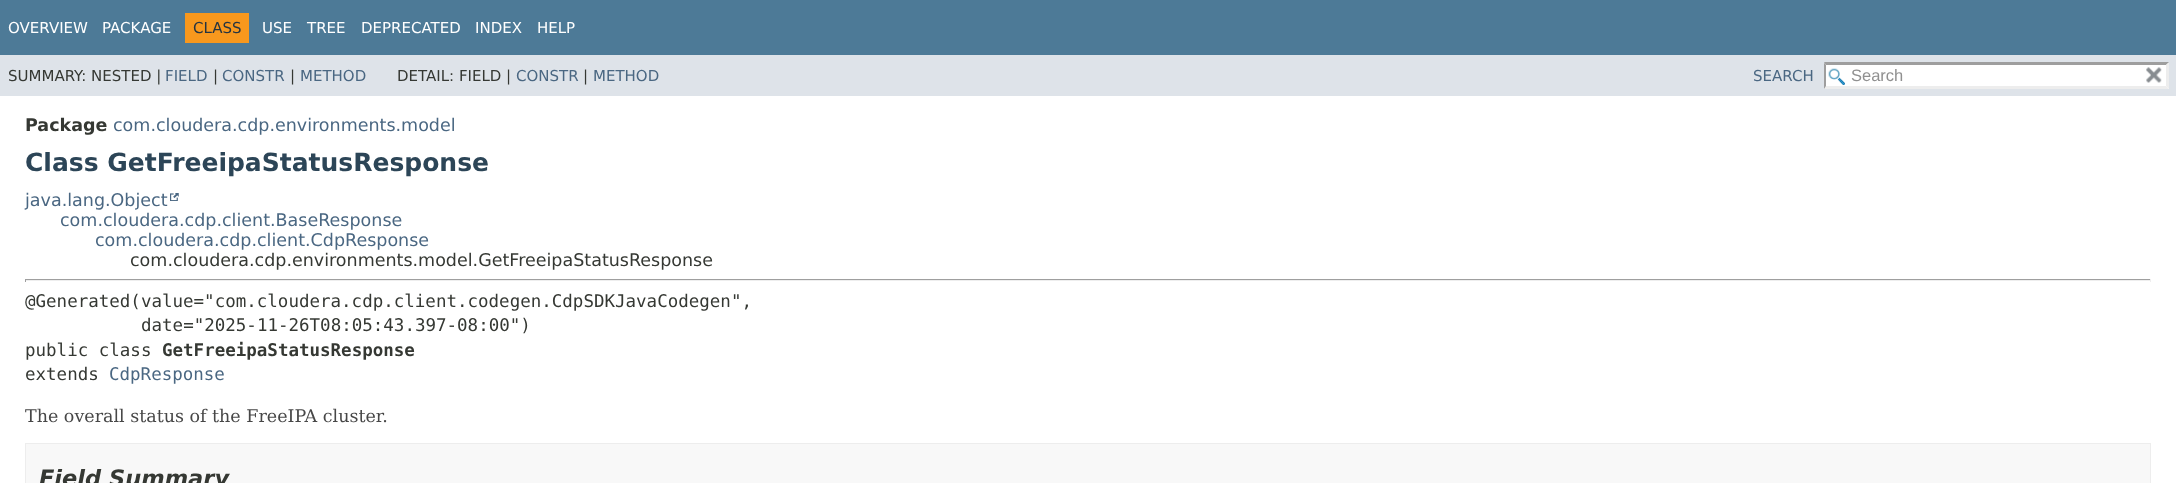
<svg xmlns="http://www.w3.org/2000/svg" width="2176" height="483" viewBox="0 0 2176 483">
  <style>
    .t1 { font: 15px DejaVu Sans; fill: #fff; }
    .t2 { font: 15px DejaVu Sans; fill: #253441; }
    .t3 { font: 15px DejaVu Sans; fill: #353833; }
    .t4 { font: 15px DejaVu Sans; fill: #4a6782; }
    .t5 { font: 16.5px Liberation Sans; fill: #909090; }
    .t6 { font: bold 17.5px DejaVu Sans; fill: #353833; }
    .t7 { font: 17.5px DejaVu Sans; fill: #4a6782; }
    .t8 { font: bold 25px DejaVu Sans; fill: #2c4557; }
    .t9 { font: 17.5px DejaVu Sans; fill: #353833; }
    .t10 { font: 17.5px DejaVu Sans Mono; fill: #353833; }
    .t11 { font: bold 17.5px DejaVu Sans Mono; fill: #353833; }
    .t12 { font: 17.5px DejaVu Sans Mono; fill: #4a6782; }
    .t13 { font: 17.5px DejaVu Serif; fill: #474747; }
    .t14 { font: italic bold 22.5px DejaVu Sans; fill: #353833; }
  </style>
  <rect width="100%" height="100%" fill="#fff"/>
  <rect x="0" y="0" width="2176" height="55" fill="#4d7a97"/>
  <text x="8" y="33" class="t1">OVERVIEW</text>
  <text x="102" y="33" class="t1">PACKAGE</text>
  <rect x="185" y="13" width="64" height="30" fill="#f8981d"/>
  <text x="193" y="33" class="t2">CLASS</text>
  <text x="262" y="33" class="t1">USE</text>
  <text x="307" y="33" class="t1">TREE</text>
  <text x="361" y="33" class="t1">DEPRECATED</text>
  <text x="475" y="33" class="t1">INDEX</text>
  <text x="537" y="33" class="t1">HELP</text>
  <rect x="0" y="55" width="2176" height="41" fill="#dee3e9"/>
  <text x="8" y="81" class="t3">SUMMARY: NESTED |</text>
  <text x="165" y="81" class="t4">FIELD</text>
  <text x="213" y="81" class="t3">|</text>
  <text x="222" y="81" class="t4">CONSTR</text>
  <text x="290" y="81" class="t3">|</text>
  <text x="300" y="81" class="t4">METHOD</text>
  <text x="397" y="81" class="t3">DETAIL: FIELD |</text>
  <text x="516" y="81" class="t4">CONSTR</text>
  <text x="583" y="81" class="t3">|</text>
  <text x="593" y="81" class="t4">METHOD</text>
  <text x="1753" y="81" class="t4">SEARCH</text>
  <rect x="1824" y="63" width="345" height="26" fill="#fff"/>
  <image x="1828" y="68" width="17" height="17" href="images/1.png"/>
  <path d="M1824 62H2169L2166 65H1826Z" fill="#9e9e9e"/>
  <path d="M2169 62.5V89L2166 86V65Z" fill="#ededed"/>
  <path d="M2169 89H1824L1826 86H2166Z" fill="#ededed"/>
  <path d="M1824 89V62.5L1826 65V86Z" fill="#9e9e9e"/>
  <text x="1851" y="81" class="t5">Search</text>
  <image x="2146" y="67" width="16" height="16" href="images/2.png"/>
  <text x="25" y="131" class="t6">Package</text>
  <text x="113" y="131" class="t7">com.cloudera.cdp.environments.model</text>
  <text x="25" y="171" class="t8">Class GetFreeipaStatusResponse</text>
  <text x="25" y="206" class="t7">java.lang.Object</text>
  <image x="170" y="193" width="9" height="8" href="images/3.png"/>
  <text x="60" y="226" class="t7">com.cloudera.cdp.client.BaseResponse</text>
  <text x="95" y="246" class="t7">com.cloudera.cdp.client.CdpResponse</text>
  <text x="130" y="266" class="t9">com.cloudera.cdp.environments.model.GetFreeipaStatusResponse</text>
  <rect x="25" y="279" width="2126" height="1" fill="#9f9f9f"/>
  <rect x="2150" y="279" width="1" height="3" fill="#eee"/>
  <rect x="25" y="280" width="2126" height="1" fill="#eee"/>
  <rect x="25" y="279" width="1" height="3" fill="#9f9f9f"/>
  <text x="25" y="307" class="t10">@Generated(value="com.cloudera.cdp.client.codegen.CdpSDKJavaCodegen",</text>
  <text x="141" y="331" class="t10">date="2025-11-26T08:05:43.397-08:00")</text>
  <text x="25" y="356" class="t10">public class</text>
  <text x="162" y="356" class="t11">GetFreeipaStatusResponse</text>
  <text x="25" y="380" class="t10">extends</text>
  <text x="109" y="380" class="t12">CdpResponse</text>
  <text x="25" y="422" class="t13">The overall status of the FreeIPA cluster.</text>
  <rect x="25.5" y="443.5" width="2125" height="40" fill="#f8f8f8" stroke="#ededed"/>
  <text x="39" y="486" class="t14">Field Summary</text>
</svg>
